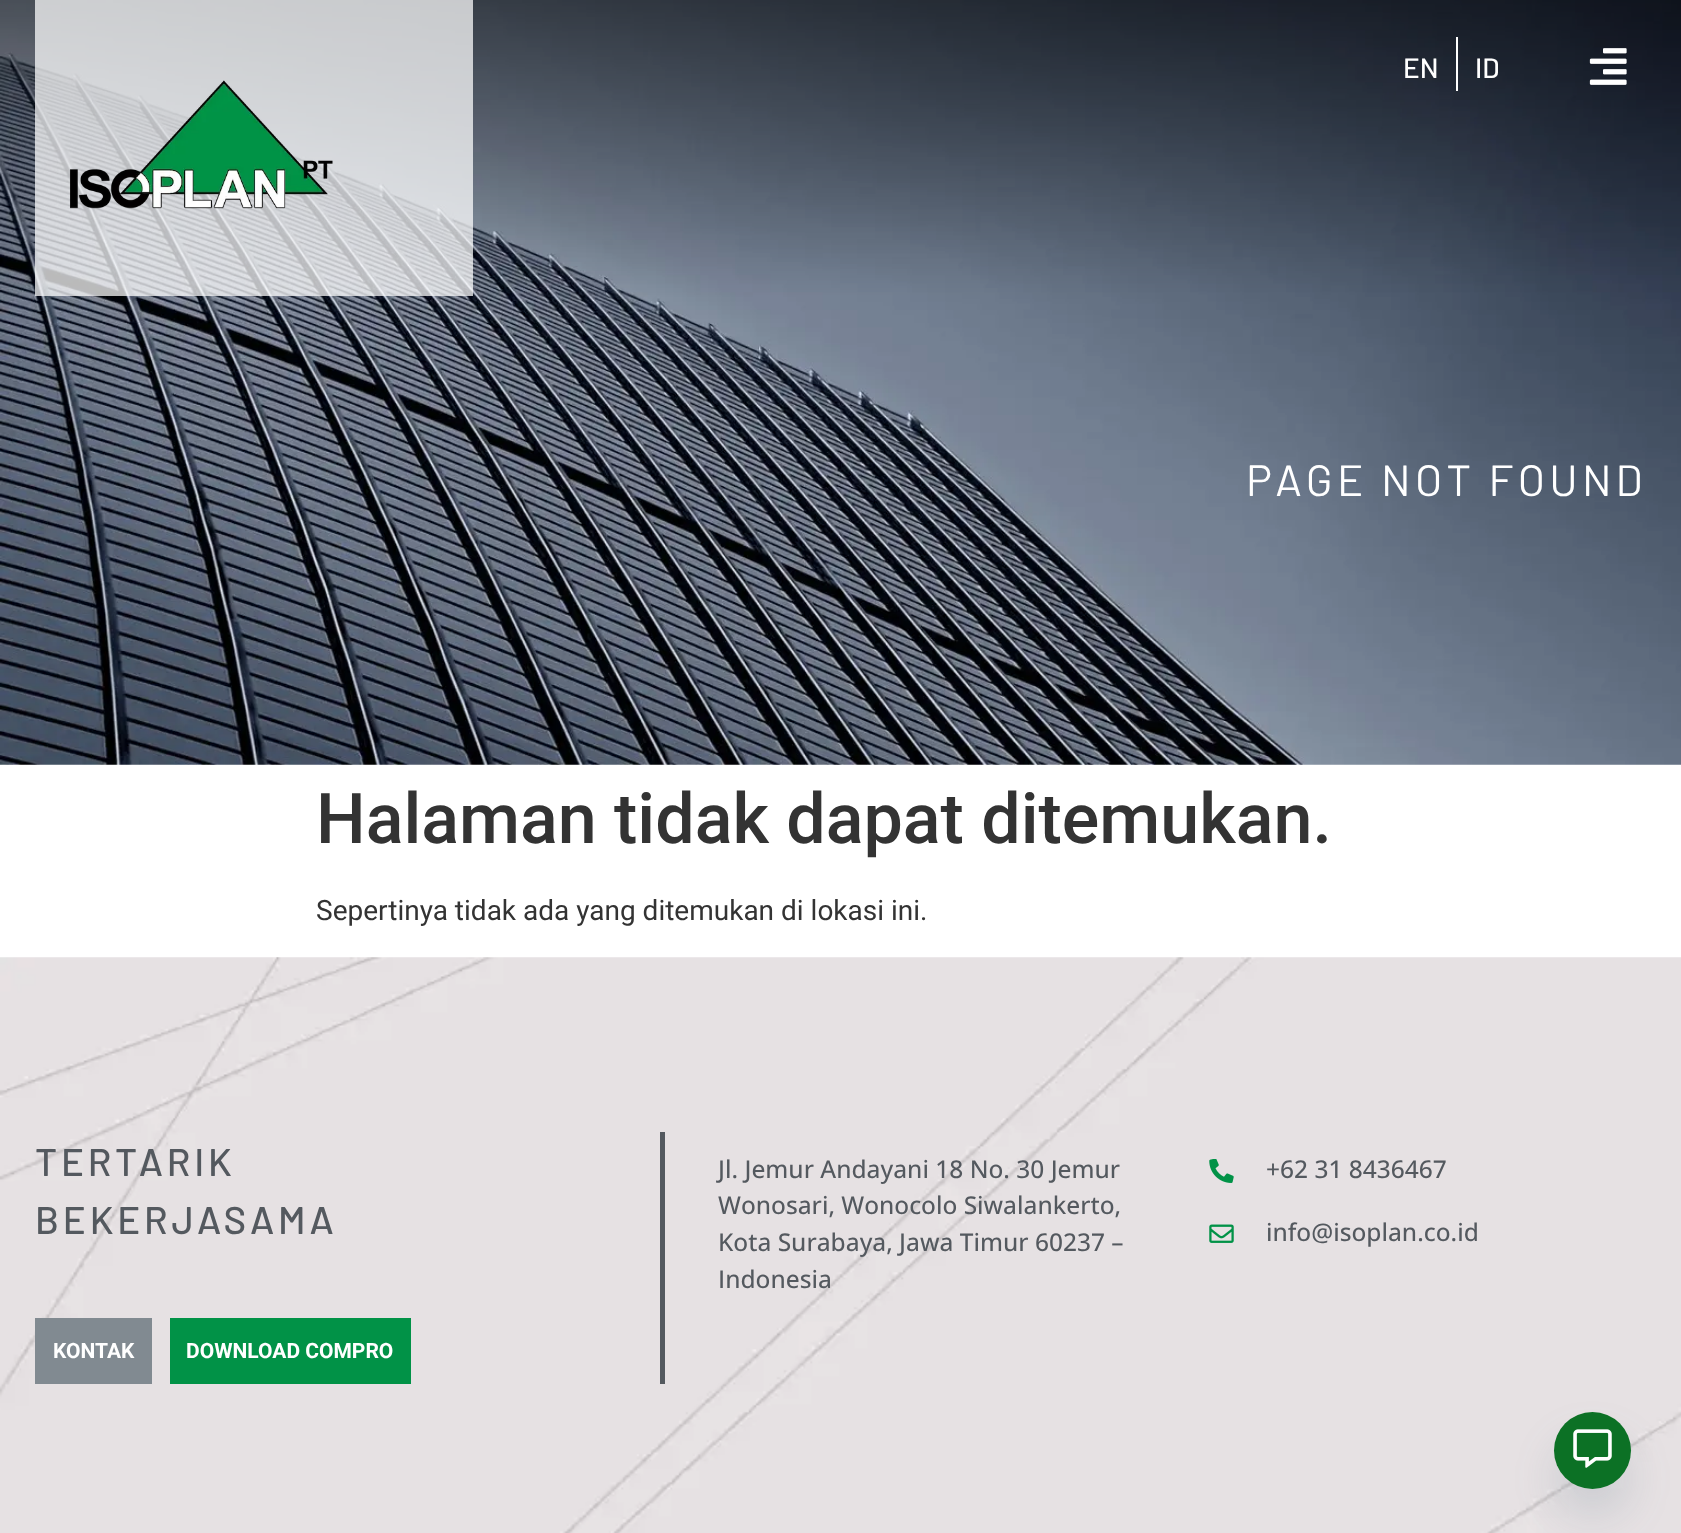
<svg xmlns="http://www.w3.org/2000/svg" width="1681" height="1533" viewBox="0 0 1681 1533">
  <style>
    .t1 { font: 500 28px Barlow; fill: #fff; }
    .t2 { font: 43.75px Barlow; letter-spacing: 4.4px; fill: #fff; }
    .t3 { font: 500 70px Roboto; fill: #333; }
    .t4 { font: 28px Roboto; fill: #333; }
    .t5 { font: 500 38.5px Barlow; letter-spacing: 3.8px; fill: #54595f; }
    .t6 { font: bold 21px Roboto; fill: #fff; }
    .t7 { font: 500 24.5px Open Sans; fill: #54595f; }
  </style>
  <rect width="100%" height="100%" fill="#fff"/>
  <image x="0" y="0" width="1681" height="765" href="images/3.png"/>
  <rect x="35" y="0" width="438" height="296" fill="#ffffffba"/>
  <image x="70" y="80" width="263" height="129" href="images/1.png"/>
  <rect x="1456" y="37" width="2" height="54" fill="#fff"/>
  <text x="1403" y="78" class="t1">EN</text>
  <text x="1475" y="78" class="t1">ID</text>
  <image x="1589" y="48" width="38" height="37" href="images/2.png"/>
  <text x="1246" y="496" class="t2">PAGE NOT FOUND</text>
  <text x="316" y="843" class="t3">Halaman tidak dapat ditemukan.</text>
  <text x="316" y="920" class="t4">Sepertinya tidak ada yang ditemukan di lokasi ini.</text>
  <image x="0" y="957" width="1681" height="576" href="images/4.png"/>
  <rect x="660" y="1132" width="5" height="252" fill="#54595f"/>
  <text x="35" y="1176" class="t5">TERTARIK</text>
  <text x="35" y="1234" class="t5">BEKERJASAMA</text>
  <rect x="35" y="1318" width="117" height="66" fill="#818a91"/>
  <text x="53" y="1358" class="t6">KONTAK</text>
  <rect x="170" y="1318" width="241" height="66" fill="#019247"/>
  <text x="186" y="1358" class="t6">DOWNLOAD COMPRO</text>
  <text x="718" y="1178" class="t7">Jl. Jemur Andayani 18 No. 30 Jemur</text>
  <text x="718" y="1214" class="t7">Wonosari, Wonocolo Siwalankerto,</text>
  <text x="718" y="1251" class="t7">Kota Surabaya, Jawa Timur 60237 –</text>
  <text x="718" y="1288" class="t7">Indonesia</text>
  <image x="1209" y="1159" width="25" height="24" href="images/5.png"/>
  <text x="1266" y="1178" class="t7">+62 31 8436467</text>
  <image x="1209" y="1224" width="25" height="19" href="images/6.png"/>
  <text x="1266" y="1241" class="t7">info@isoplan.co.id</text>
  <rect x="1554" y="1440" width="77" height="77" rx="38.5" fill="#49687e29" filter="blur(21px)"/>
  <circle cx="1592.5" cy="1450.5" r="38.5" fill="#0c7125"/>
  <image x="1573" y="1429" width="39" height="39" href="images/7.png"/>
</svg>
